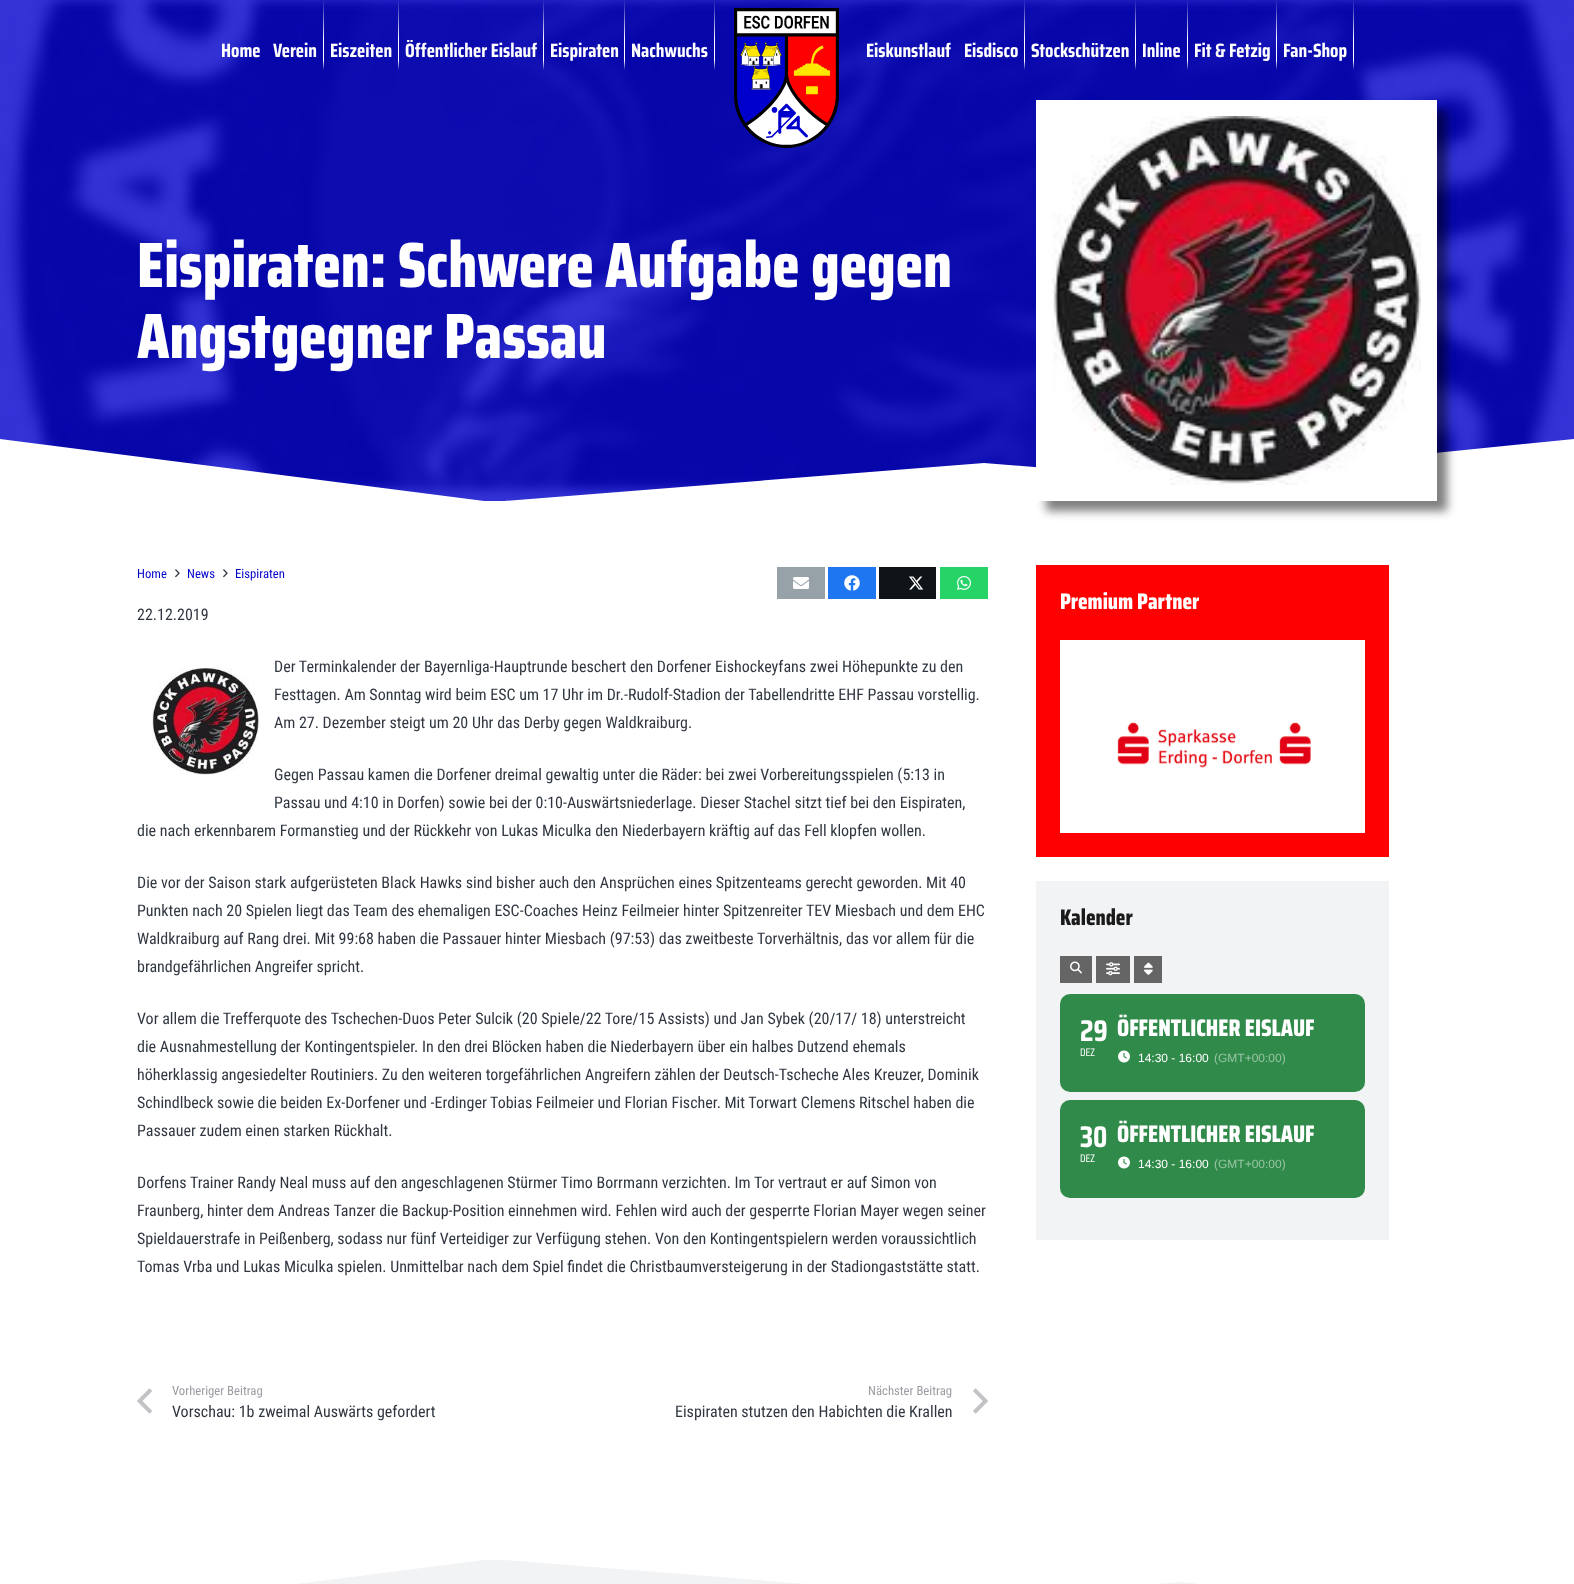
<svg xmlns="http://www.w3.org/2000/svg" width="1574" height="1584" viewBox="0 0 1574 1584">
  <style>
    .t1 { font: bold 19.25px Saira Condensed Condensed; fill: #fff; }
    .t2 { font: 800 64px Saira Condensed; fill: #fff; }
    .t3 { font: 12.75px Roboto Condensed; fill: #00c; }
    .t4 { font: 16px Roboto Condensed; fill: #303640; }
    .t5 { font: 12.75px Roboto Condensed; fill: #989ba0; }
    .t6 { font: 800 22.5px Saira Condensed; fill: #fff; }
    .t7 { font: 800 22.5px Saira Condensed; fill: #1a1a1a; }
    .t8 { font: bold 30px Saira Condensed Condensed; fill: #fff; }
    .t9 { font: 11px Saira Condensed; fill: #fff; }
    .t10 { font: 800 24px Saira Condensed; fill: #fff; }
    .t11 { font: 12px Liberation Sans; fill: #fff; }
    .t12 { font: 12px Liberation Sans; fill: #98c5a5; }
  </style>
  <defs>
    <clipPath id="clip1"><rect x="0" y="1560" width="1574" height="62"/></clipPath>
  </defs>
  <rect width="100%" height="100%" fill="#fff"/>
  <rect x="0" y="0" width="1574" height="501" fill="#3333d6"/>
  <image x="0" y="0" width="1574" height="500" href="images/12.png"/>
  <text x="221" y="57" class="t1">Home</text>
  <image x="323" y="0" width="1" height="70" href="images/1.png"/>
  <text x="273" y="57" class="t1">Verein</text>
  <image x="398" y="0" width="1" height="70" href="images/2.png"/>
  <text x="330" y="57" class="t1">Eiszeiten</text>
  <image x="543" y="0" width="1" height="70" href="images/3.png"/>
  <text x="405" y="57" class="t1">Öffentlicher Eislauf</text>
  <image x="624" y="0" width="1" height="70" href="images/4.png"/>
  <text x="550" y="57" class="t1">Eispiraten</text>
  <image x="714" y="0" width="1" height="70" href="images/5.png"/>
  <text x="631" y="57" class="t1">Nachwuchs</text>
  <image x="734" y="8" width="105" height="140" href="images/6.png"/>
  <text x="866" y="57" class="t1">Eiskunstlauf</text>
  <image x="1024" y="0" width="1" height="70" href="images/7.png"/>
  <text x="964" y="57" class="t1">Eisdisco</text>
  <image x="1135" y="0" width="1" height="70" href="images/8.png"/>
  <text x="1031" y="57" class="t1">Stockschützen</text>
  <image x="1187" y="0" width="1" height="70" href="images/9.png"/>
  <text x="1142" y="57" class="t1">Inline</text>
  <image x="1276" y="0" width="1" height="70" href="images/10.png"/>
  <text x="1194" y="57" class="t1">Fit &amp; Fetzig</text>
  <image x="1353" y="0" width="1" height="70" href="images/11.png"/>
  <text x="1283" y="57" class="t1">Fan-Shop</text>
  <text x="137" y="287" class="t2">Eispiraten: Schwere Aufgabe gegen</text>
  <text x="137" y="358" class="t2">Angstgegner Passau</text>
  <path d="M1574 502H0V439L492 502L984 463L1180 479L1574 439Z" fill="#fff"/>
  <rect x="1046" y="110" width="401" height="401" fill="#00000080" filter="blur(5px)"/>
  <rect x="1036" y="100" width="401" height="401" fill="#fff"/>
  <image x="1052" y="116" width="369" height="369" href="images/13.png"/>
  <text x="137" y="578" class="t3">Home</text>
  <image x="175" y="569" width="5" height="9" href="images/14.png"/>
  <text x="187" y="578" class="t3">News</text>
  <image x="223" y="569" width="5" height="9" href="images/14.png"/>
  <text x="235" y="578" class="t3">Eispiraten</text>
  <rect x="777" y="567" width="48" height="32" fill="#96a2a8"/>
  <image x="793" y="577" width="16" height="12" href="images/15.png"/>
  <rect x="828" y="567" width="48" height="32" fill="#1e77f0"/>
  <image x="844" y="575" width="16" height="16" href="images/16.png"/>
  <rect x="879" y="567" width="57" height="32" fill="#0f1419"/>
  <image x="909" y="576" width="15" height="14" href="images/17.png"/>
  <rect x="940" y="567" width="48" height="32" fill="#25d366"/>
  <image x="957" y="576" width="14" height="14" href="images/18.png"/>
  <text x="137" y="620" class="t4">22.12.2019</text>
  <image x="152" y="668" width="107" height="107" href="images/19.png"/>
  <text x="274" y="672" class="t4">Der Terminkalender der Bayernliga-Hauptrunde beschert den Dorfener Eishockeyfans zwei Höhepunkte zu den</text>
  <text x="274" y="700" class="t4">Festtagen. Am Sonntag wird beim ESC um 17 Uhr im Dr.-Rudolf-Stadion der Tabellendritte EHF Passau vorstellig.</text>
  <text x="274" y="728" class="t4">Am 27. Dezember steigt um 20 Uhr das Derby gegen Waldkraiburg.</text>
  <text x="274" y="780" class="t4">Gegen Passau kamen die Dorfener dreimal gewaltig unter die Räder: bei zwei Vorbereitungsspielen (5:13 in</text>
  <text x="274" y="808" class="t4">Passau und 4:10 in Dorfen) sowie bei der 0:10-Auswärtsniederlage. Dieser Stachel sitzt tief bei den Eispiraten,</text>
  <text x="137" y="836" class="t4">die nach erkennbarem Formanstieg und der Rückkehr von Lukas Miculka den Niederbayern kräftig auf das Fell klopfen wollen.</text>
  <text x="137" y="888" class="t4">Die vor der Saison stark aufgerüsteten Black Hawks sind bisher auch den Ansprüchen eines Spitzenteams gerecht geworden. Mit 40</text>
  <text x="137" y="916" class="t4">Punkten nach 20 Spielen liegt das Team des ehemaligen ESC-Coaches Heinz Feilmeier hinter Spitzenreiter TEV Miesbach und dem EHC</text>
  <text x="137" y="944" class="t4">Waldkraiburg auf Rang drei. Mit 99:68 haben die Passauer hinter Miesbach (97:53) das zweitbeste Torverhältnis, das vor allem für die</text>
  <text x="137" y="972" class="t4">brandgefährlichen Angreifer spricht.</text>
  <text x="137" y="1024" class="t4">Vor allem die Trefferquote des Tschechen-Duos Peter Sulcik (20 Spiele/22 Tore/15 Assists) und Jan Sybek (20/17/ 18) unterstreicht</text>
  <text x="137" y="1052" class="t4">die Ausnahmestellung der Kontingentspieler. In den drei Blöcken haben die Niederbayern über ein halbes Dutzend ehemals</text>
  <text x="137" y="1080" class="t4">höherklassig angesiedelter Routiniers. Zu den weiteren torgefährlichen Angreifern zählen der Deutsch-Tscheche Ales Kreuzer, Dominik</text>
  <text x="137" y="1108" class="t4">Schindlbeck sowie die beiden Ex-Dorfener und -Erdinger Tobias Feilmeier und Florian Fischer. Mit Torwart Clemens Ritschel haben die</text>
  <text x="137" y="1136" class="t4">Passauer zudem einen starken Rückhalt.</text>
  <text x="137" y="1188" class="t4">Dorfens Trainer Randy Neal muss auf den angeschlagenen Stürmer Timo Borrmann verzichten. Im Tor vertraut er auf Simon von</text>
  <text x="137" y="1216" class="t4">Fraunberg, hinter dem Andreas Tanzer die Backup-Position einnehmen wird. Fehlen wird auch der gesperrte Florian Mayer wegen seiner</text>
  <text x="137" y="1244" class="t4">Spieldauerstrafe in Peißenberg, sodass nur fünf Verteidiger zur Verfügung stehen. Von den Kontingentspielern werden voraussichtlich</text>
  <text x="137" y="1272" class="t4">Tomas Vrba und Lukas Miculka spielen. Unmittelbar nach dem Spiel findet die Christbaumversteigerung in der Stadiongaststätte statt.</text>
  <image x="137" y="1388" width="15" height="26" href="images/20.png"/>
  <text x="172" y="1395" class="t5">Vorheriger Beitrag</text>
  <text x="172" y="1417" class="t4">Vorschau: 1b zweimal Auswärts gefordert</text>
  <text x="868" y="1395" class="t5">Nächster Beitrag</text>
  <image x="973" y="1388" width="15" height="26" href="images/21.png"/>
  <text x="675" y="1417" class="t4">Eispiraten stutzen den Habichten die Krallen</text>
  <rect x="1036" y="565" width="353" height="292" fill="#f00"/>
  <text x="1060" y="609" class="t6">Premium Partner</text>
  <rect x="1060" y="640" width="305" height="193" fill="#fff"/>
  <image x="1117" y="722" width="194" height="46" href="images/22.png"/>
  <rect x="1036" y="881" width="353" height="359" fill="#f2f3f5"/>
  <text x="1060" y="925" class="t7">Kalender</text>
  <rect x="1060" y="956" width="32" height="27" fill="#656565"/>
  <image x="1070" y="961" width="12" height="13" href="images/23.png"/>
  <rect x="1096" y="956" width="34" height="27" fill="#656565"/>
  <image x="1106" y="962" width="14" height="14" href="images/24.png"/>
  <rect x="1134" y="956" width="28" height="27" fill="#656565"/>
  <image x="1144" y="962" width="9" height="13" href="images/25.png"/>
  <rect x="1060" y="994" width="305" height="98" rx="10" fill="#308a4a"/>
  <text x="1080" y="1041" class="t8">29</text>
  <text x="1080" y="1056" class="t9">DEZ</text>
  <text x="1117" y="1036" class="t10">ÖFFENTLICHER EISLAUF</text>
  <image x="1118" y="1050" width="12" height="13" href="images/26.png"/>
  <text x="1138" y="1062" class="t11">14:30 - 16:00</text>
  <text x="1214" y="1062" class="t12">(GMT+00:00)</text>
  <rect x="1060" y="1100" width="305" height="98" rx="10" fill="#308a4a"/>
  <text x="1080" y="1147" class="t8">30</text>
  <text x="1080" y="1162" class="t9">DEZ</text>
  <text x="1117" y="1142" class="t10">ÖFFENTLICHER EISLAUF</text>
  <image x="1118" y="1156" width="12" height="13" href="images/26.png"/>
  <text x="1138" y="1168" class="t11">14:30 - 16:00</text>
  <text x="1214" y="1168" class="t12">(GMT+00:00)</text>
  <rect x="297" y="1560" width="903" height="24" fill="#f2f3f5"/>
  <g clip-path="url(#clip1)">
    <path d="M1574 1558H0V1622L492 1559L984 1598L1180 1582L1574 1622Z" fill="#fff"/>
  </g>
</svg>
